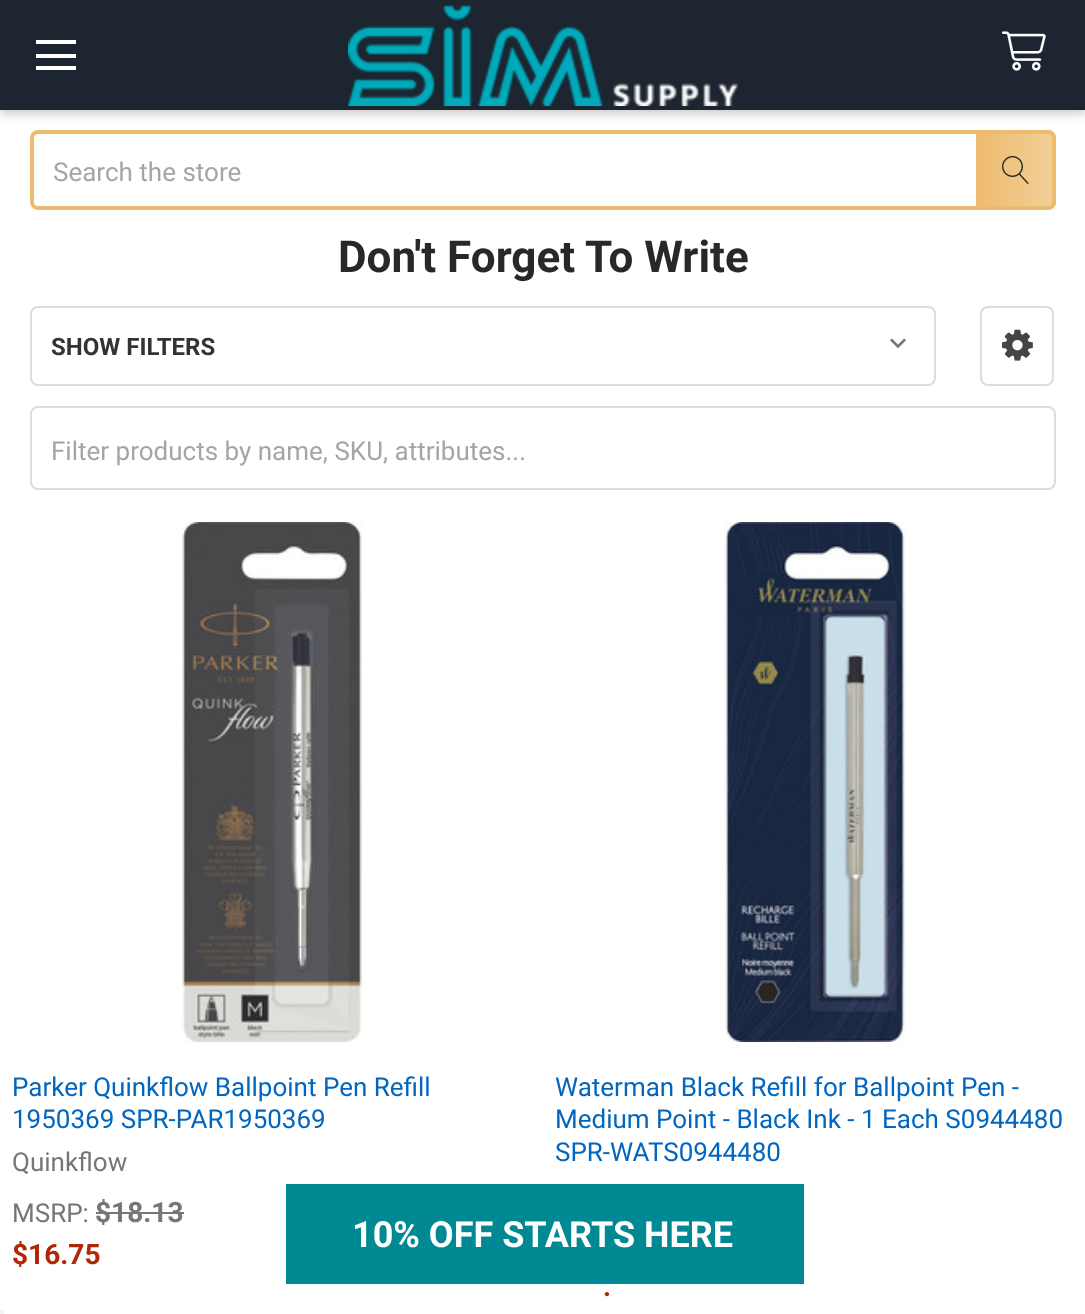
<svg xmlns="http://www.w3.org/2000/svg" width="1085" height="1314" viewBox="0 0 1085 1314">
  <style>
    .t1 { font: 26px Roboto; fill: #a5a5a5; }
    .t2 { font: bold 44px Roboto; fill: #282828; }
    .t3 { font: bold 24px Roboto; fill: #333; }
    .t4 { font: 26px Roboto; fill: #0066c0; }
    .t5 { font: 26px Roboto; fill: #767676; }
    .t6 { font: bold 28px Roboto; fill: #767676; }
    .t7 { font: bold 28px Roboto; fill: #b12704; }
    .t8 { font: bold 36px Roboto; fill: #fff; }
  </style>
  <defs>
    <linearGradient id="g1" gradientUnits="userSpaceOnUse" x1="976" y1="170" x2="1056" y2="170"><stop offset="0" stop-color="#edbb6e"/><stop offset="1" stop-color="#edbb6e" stop-opacity="0.7"/></linearGradient>
  </defs>
  <rect width="100%" height="100%" fill="#fff"/>
  <rect x="0" y="4" width="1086" height="110" fill="#00000033" filter="blur(5px)"/>
  <rect x="0" y="0" width="1085" height="110" fill="#1c2530"/>
  <rect x="36" y="54" width="40" height="4" fill="#fff"/>
  <rect x="36" y="40" width="40" height="4" fill="#fff"/>
  <rect x="36" y="66" width="40" height="4" fill="#fff"/>
  <image x="348" y="5" width="390" height="101" href="images/1.png"/>
  <image x="1002" y="31" width="44" height="40" href="images/2.png"/>
  <rect x="32" y="132" width="1022" height="76" rx="6" fill="none" stroke="#edbb6e" stroke-width="4"/>
  <text x="53" y="181" class="t1">Search the store</text>
  <path d="M976 130H1048C1052.5 130 1056 133.5 1056 138V202C1056 206.5 1052.5 210 1048 210H976Z" fill="url(#g1)"/>
  <image x="1002" y="156" width="27" height="28" href="images/3.png"/>
  <text x="338" y="272" class="t2">Don't Forget To Write</text>
  <rect x="31" y="307" width="904" height="78" rx="7" fill="none" stroke="#dcdcdc" stroke-width="2"/>
  <text x="51" y="355" class="t3">SHOW FILTERS</text>
  <image x="890" y="338" width="16" height="11" href="images/4.png"/>
  <rect x="981" y="307" width="72" height="78" rx="7" fill="none" stroke="#dcdcdc" stroke-width="2"/>
  <image x="1002" y="329" width="31" height="32" href="images/5.png"/>
  <rect x="31" y="407" width="1024" height="82" rx="7" fill="none" stroke="#dcdcdc" stroke-width="2"/>
  <text x="51" y="460" class="t1">Filter products by name, SKU, attributes...</text>
  <image x="181" y="522" width="183" height="520" href="images/6.png"/>
  <text x="12" y="1096" class="t4">Parker Quinkflow Ballpoint Pen Refill</text>
  <text x="12" y="1128" class="t4">1950369 SPR-PAR1950369</text>
  <text x="12" y="1171" class="t5">Quinkflow</text>
  <text x="12" y="1222" class="t5">MSRP:</text>
  <text x="95" y="1222" class="t6">$18.13</text>
  <rect x="96" y="1212" width="88" height="2" fill="#767676"/>
  <text x="12" y="1264" class="t7">$16.75</text>
  <image x="724" y="522" width="182" height="520" href="images/7.png"/>
  <text x="555" y="1096" class="t4">Waterman Black Refill for Ballpoint Pen -</text>
  <text x="555" y="1128" class="t4">Medium Point - Black Ink - 1 Each S0944480</text>
  <text x="555" y="1161" class="t4">SPR-WATS0944480</text>
  <text x="603" y="1296" class="t7">.</text>
  <rect x="286" y="1184" width="518" height="100" fill="#008993"/>
  <text x="352" y="1247" class="t8">10% OFF STARTS HERE</text>
  <rect x="0" y="1310" width="4" height="4" fill="#f5f5f5"/>
</svg>
